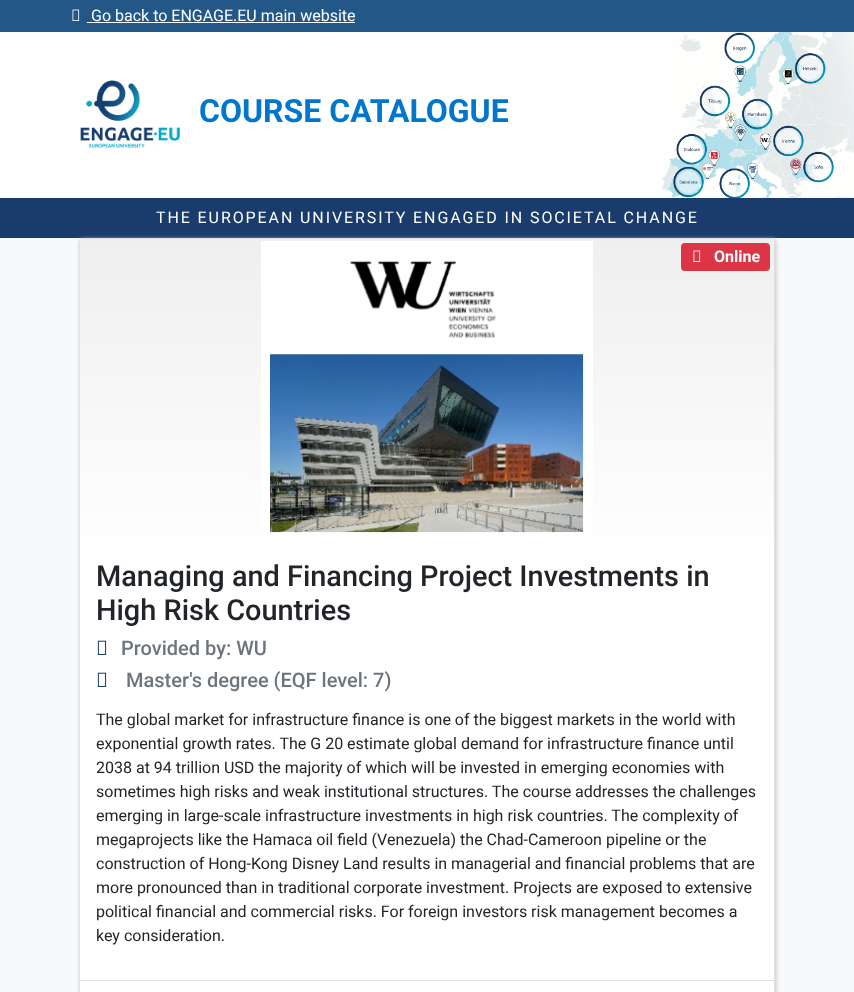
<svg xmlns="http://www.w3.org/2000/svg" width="854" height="992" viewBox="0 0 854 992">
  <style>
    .t1 { font: 16px Roboto; fill: #fff; }
    .t2 { font: bold 32px Roboto; fill: #07c; }
    .t3 { font: 16px Roboto; letter-spacing: 1.9px; fill: #fff; }
    .t4 { font: bold 16px Roboto; fill: #fff; }
    .t5 { font: 500 28.9px Roboto; fill: #212529; }
    .t6 { font: 500 20px Roboto; fill: #6c757d; }
    .t7 { font: 16px Roboto; fill: #212529; }
  </style>
  <defs>
    <linearGradient id="g1" gradientUnits="userSpaceOnUse" x1="427" y1="239" x2="427" y2="543"><stop offset="0" stop-color="#efefef"/><stop offset="1" stop-color="#fefefe"/></linearGradient>
  </defs>
  <rect width="100%" height="100%" fill="#f7f9fb"/>
  <rect x="0" y="0" width="854" height="32" fill="#235787"/>
  <image x="72" y="9" width="8" height="12" href="images/1.png"/>
  <text x="91" y="21" class="t1">Go back to ENGAGE.EU main website</text>
  <rect x="87" y="22" width="268" height="1" fill="#fff"/>
  <rect x="0" y="32" width="661" height="166" fill="#fff"/>
  <image x="661" y="32" width="193" height="166" href="images/2.png"/>
  <image x="80" y="80" width="100" height="68" href="images/3.png"/>
  <text x="199" y="122" class="t2">COURSE CATALOGUE</text>
  <rect x="0" y="198" width="854" height="40" fill="#193c6c"/>
  <text x="156" y="223" class="t3">THE EUROPEAN UNIVERSITY ENGAGED IN SOCIETAL CHANGE</text>
  <rect x="80" y="239" width="696" height="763" rx="4" fill="#c5c5c5" filter="blur(2px)"/>
  <rect x="79" y="238" width="696" height="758" rx="4" fill="#fff"/>
  <rect x="79.5" y="238.5" width="695" height="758" rx="3.5" fill="none" stroke="#0000001f"/>
  <path d="M83 239H771C772.5 239 774 240.5 774 242V543H80V242C80 240.5 81.5 239 83 239Z" fill="url(#g1)"/>
  <image x="261" y="241" width="332" height="292" href="images/4.png"/>
  <rect x="681" y="243" width="89" height="28" rx="4" fill="#dc3545"/>
  <image x="693" y="250" width="8" height="12" href="images/5.png"/>
  <text x="714" y="262" class="t4">Online</text>
  <text x="96" y="586" class="t5">Managing and Financing Project Investments in</text>
  <text x="96" y="620" class="t5">High Risk Countries</text>
  <image x="97" y="640" width="10" height="15" href="images/6.png"/>
  <text x="121" y="655" class="t6">Provided by: WU</text>
  <image x="97" y="672" width="10" height="15" href="images/6.png"/>
  <text x="126" y="687" class="t6">Master's degree (EQF level: 7)</text>
  <text x="96" y="725" class="t7">The global market for infrastructure finance is one of the biggest markets in the world with</text>
  <text x="96" y="749" class="t7">exponential growth rates. The G 20 estimate global demand for infrastructure finance until</text>
  <text x="96" y="773" class="t7">2038 at 94 trillion USD the majority of which will be invested in emerging economies with</text>
  <text x="96" y="797" class="t7">sometimes high risks and weak institutional structures. The course addresses the challenges</text>
  <text x="96" y="821" class="t7">emerging in large-scale infrastructure investments in high risk countries. The complexity of</text>
  <text x="96" y="845" class="t7">megaprojects like the Hamaca oil field (Venezuela) the Chad-Cameroon pipeline or the</text>
  <text x="96" y="869" class="t7">construction of Hong-Kong Disney Land results in managerial and financial problems that are</text>
  <text x="96" y="893" class="t7">more pronounced than in traditional corporate investment. Projects are exposed to extensive</text>
  <text x="96" y="917" class="t7">political financial and commercial risks. For foreign investors risk management becomes a</text>
  <text x="96" y="941" class="t7">key consideration.</text>
  <rect x="80" y="980" width="694" height="1" fill="#dfdfdf"/>
</svg>
